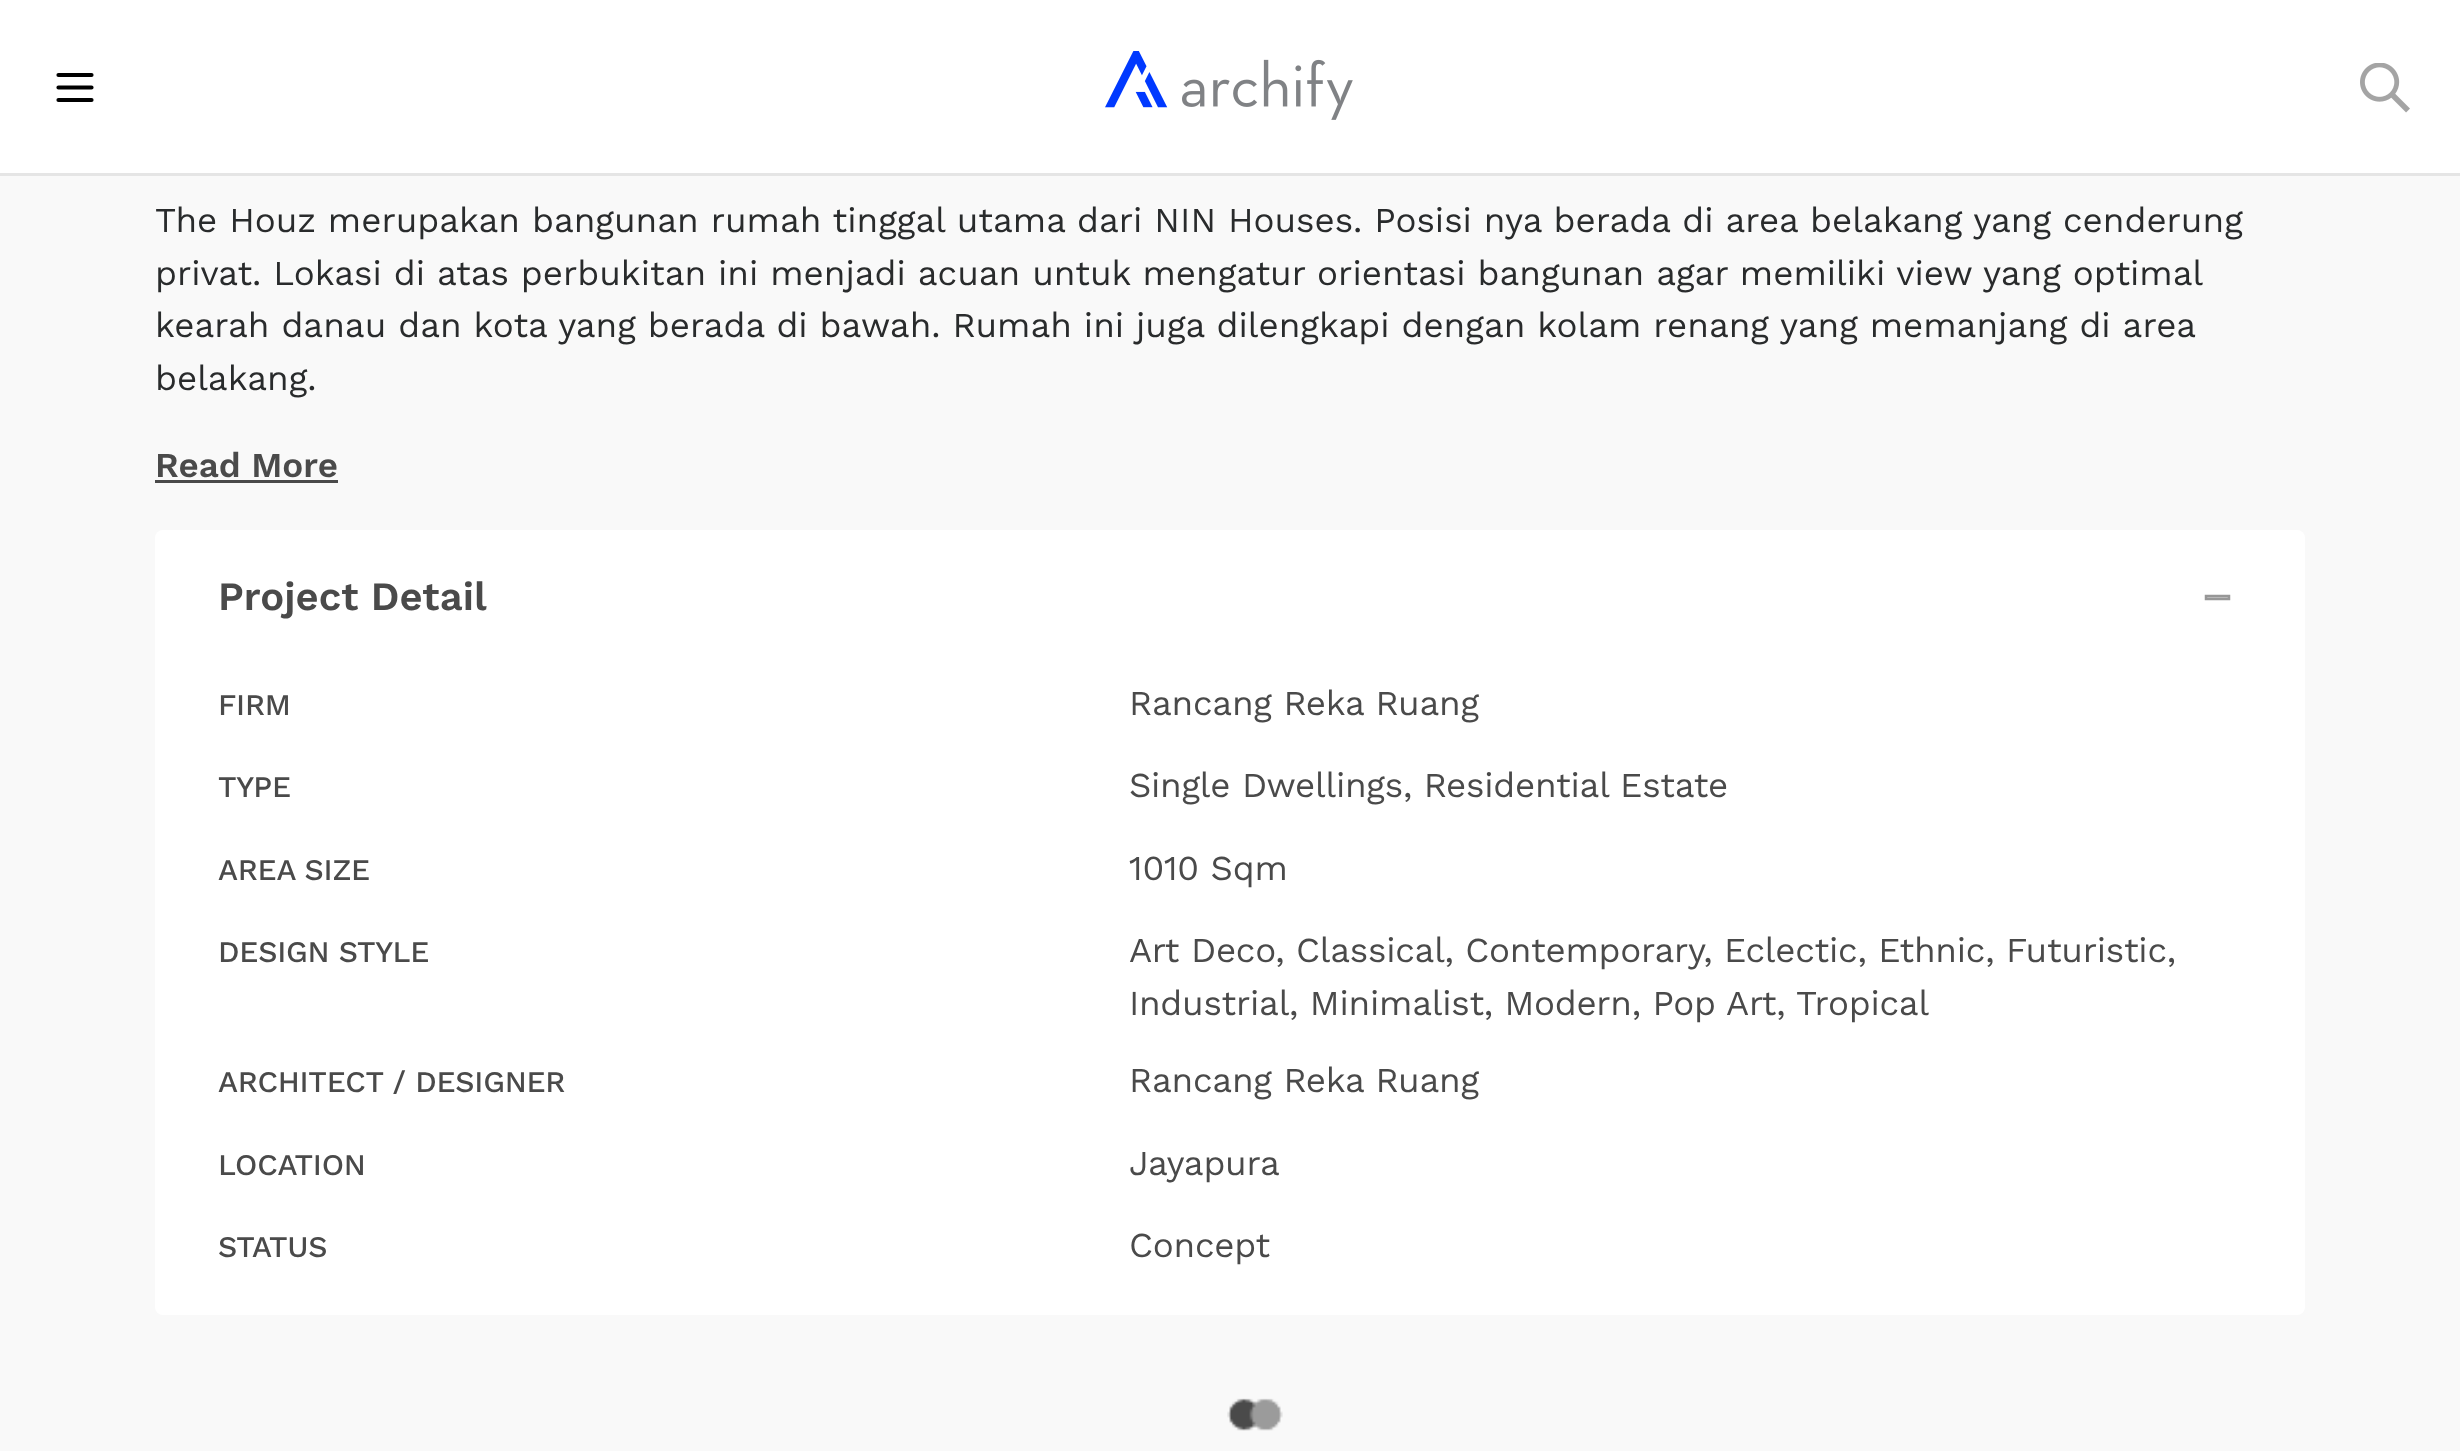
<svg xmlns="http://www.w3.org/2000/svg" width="2460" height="1451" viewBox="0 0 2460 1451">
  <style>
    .t1 { font: 35px Work Sans; fill: #292b2c; }
    .t2 { font: 600 35px Work Sans; fill: #4a4a4a; }
    .t3 { font: 600 40px Work Sans; fill: #4a4a4a; }
    .t4 { font: 500 30px Work Sans; letter-spacing: -0.25px; fill: #4a4a4a; }
    .t5 { font: 35px Work Sans; letter-spacing: -0.25px; fill: #4a4a4a; }
  </style>
  <rect width="100%" height="100%" fill="#f9f9f9"/>
  <rect x="0" y="0" width="2460" height="173" fill="#fff"/>
  <rect x="0" y="173" width="2460" height="3" fill="#e5e5e5"/>
  <path d="M58.5 100H91.5M58.5 87.5H91.5M58.5 75H91.5" fill="none" stroke="#000" stroke-width="4.2" stroke-linecap="round"/>
  <image x="1105" y="51" width="248" height="69" href="images/1.png"/>
  <image x="2360" y="63" width="50" height="50" href="images/2.png"/>
  <text x="155" y="232" class="t1">The Houz merupakan bangunan rumah tinggal utama dari NIN Houses. Posisi nya berada di area belakang yang cenderung</text>
  <text x="155" y="285" class="t1">privat. Lokasi di atas perbukitan ini menjadi acuan untuk mengatur orientasi bangunan agar memiliki view yang optimal</text>
  <text x="155" y="337" class="t1">kearah danau dan kota yang berada di bawah. Rumah ini juga dilengkapi dengan kolam renang yang memanjang di area</text>
  <text x="155" y="390" class="t1">belakang.</text>
  <text x="155" y="477" class="t2">Read More</text>
  <rect x="155" y="480" width="183" height="3" fill="#4a4a4a"/>
  <rect x="155" y="530" width="2150" height="785" rx="8" fill="#fff"/>
  <text x="218" y="610" class="t3">Project Detail</text>
  <rect x="2205" y="597" width="25" height="1" fill="#d8d8d8"/>
  <path d="M2206 596H2229V599H2206Z" fill="none" stroke="#979797" stroke-width="2.5"/>
  <text x="218" y="715" class="t4">FIRM</text>
  <text x="1129" y="715" class="t5">Rancang Reka Ruang</text>
  <text x="218" y="797" class="t4">TYPE</text>
  <text x="1129" y="797" class="t5">Single Dwellings, Residential Estate</text>
  <text x="218" y="880" class="t4">AREA SIZE</text>
  <text x="1129" y="880" class="t5">1010 Sqm</text>
  <text x="218" y="962" class="t4">DESIGN STYLE</text>
  <text x="1129" y="962" class="t5">Art Deco, Classical, Contemporary, Eclectic, Ethnic, Futuristic,</text>
  <text x="1129" y="1015" class="t5">Industrial, Minimalist, Modern, Pop Art, Tropical</text>
  <text x="218" y="1092" class="t4">ARCHITECT / DESIGNER</text>
  <text x="1129" y="1092" class="t5">Rancang Reka Ruang</text>
  <text x="218" y="1175" class="t4">LOCATION</text>
  <text x="1129" y="1175" class="t5">Jayapura</text>
  <text x="218" y="1257" class="t4">STATUS</text>
  <text x="1129" y="1257" class="t5">Concept</text>
  <image x="1227" y="1398" width="56" height="33" href="images/3.png"/>
</svg>
